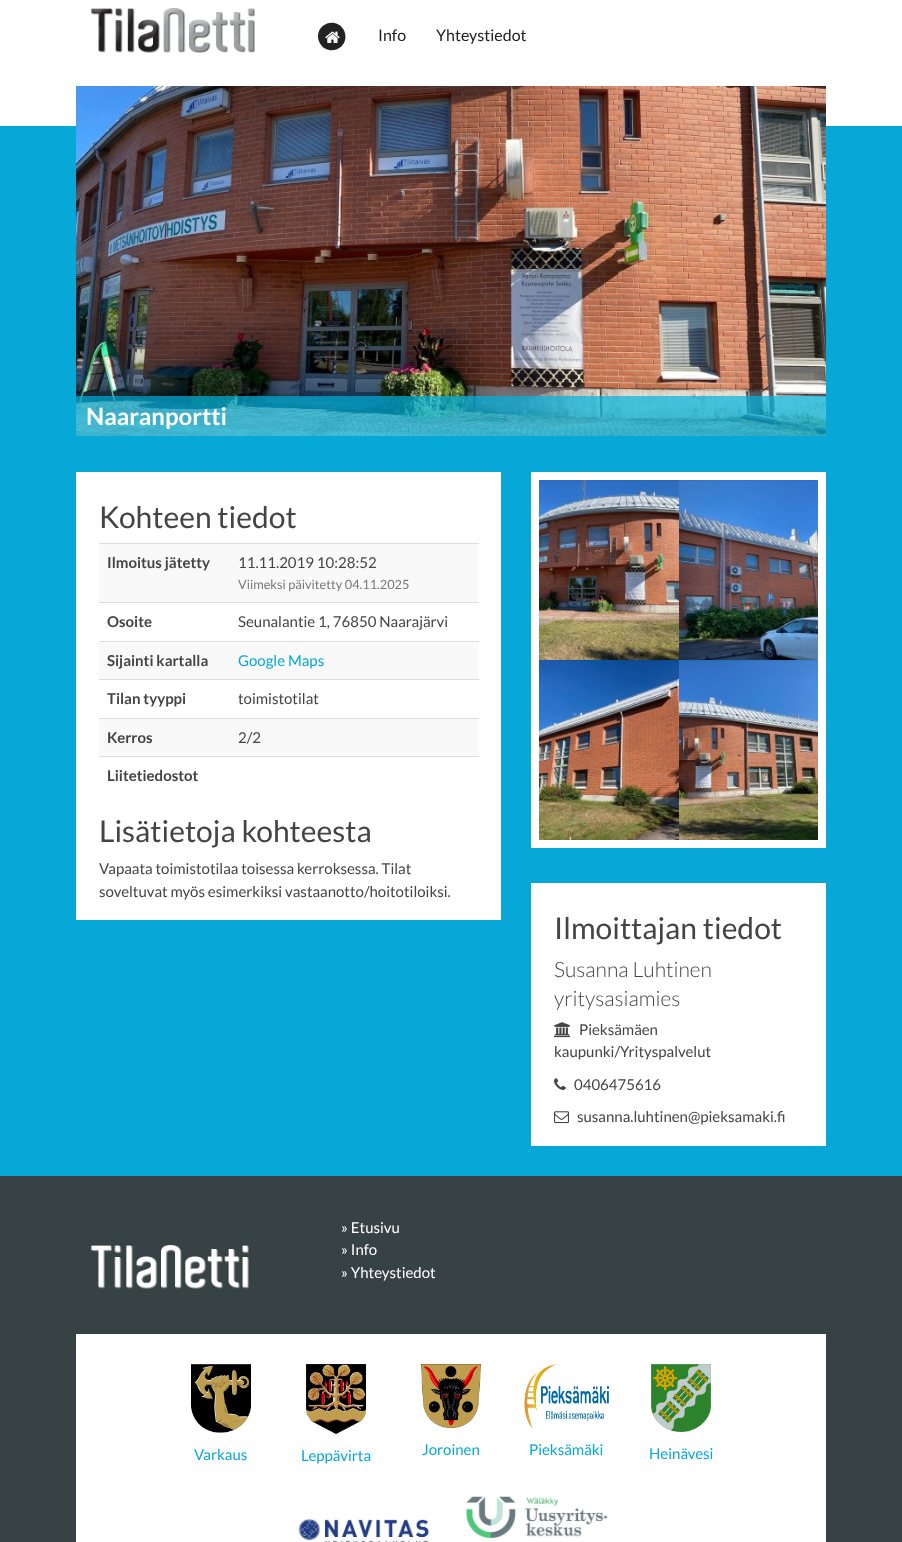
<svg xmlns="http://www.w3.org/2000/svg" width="902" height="1542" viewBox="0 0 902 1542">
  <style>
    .t1 { font: 16px Lato; fill: #222; }
    .t2 { font: bold 24px Lato; fill: #fff; }
    .t3 { font: 30px Lato; fill: #444; }
    .t4 { font: bold 15px Lato; fill: #444; }
    .t5 { font: 15px Lato; fill: #444; }
    .t6 { font: 12.75px Lato; fill: #777; }
    .t7 { font: 15px Lato; fill: #07a7d8; }
    .t8 { font: 300 21px Lato; fill: #444; }
    .t9 { font: 15px Lato; fill: #fff; }
  </style>
  <rect width="100%" height="100%" fill="#07a7d8"/>
  <rect x="0" y="0" width="902" height="126" fill="#fff"/>
  <image x="91" y="8" width="164" height="45" href="images/1.png"/>
  <path d="M343.5 29.5C345 32 345.5 35 345.5 37.5C344.5 51 326.5 55 320 43.5C318.5 41 318 38.5 318 35.5C319 22 337 18 343.5 29.5Z" fill="#222"/>
  <image x="325" y="31" width="15" height="12" href="images/2.png"/>
  <text x="378" y="41" class="t1">Info</text>
  <text x="436" y="41" class="t1">Yhteystiedot</text>
  <image x="76" y="86" width="750" height="350" href="images/3.png"/>
  <rect x="76" y="396" width="750" height="40" fill="#00b4e0b3"/>
  <text x="86" y="425" class="t2">Naaranportti</text>
  <rect x="76" y="472" width="425" height="448" fill="#fff"/>
  <text x="99" y="528" class="t3">Kohteen tiedot</text>
  <rect x="99" y="544" width="379" height="58" fill="#f9f9f9"/>
  <text x="107" y="568" class="t4">Ilmoitus jätetty</text>
  <rect x="99" y="543" width="380" height="1" fill="#ddd"/>
  <text x="238" y="568" class="t5">11.11.2019 10:28:52</text>
  <text x="238" y="589" class="t6">Viimeksi päivitetty 04.11.2025</text>
  <text x="107" y="627" class="t4">Osoite</text>
  <rect x="99" y="602" width="380" height="1" fill="#ddd"/>
  <text x="238" y="627" class="t5">Seunalantie 1, 76850 Naarajärvi</text>
  <rect x="99" y="642" width="379" height="37" fill="#f9f9f9"/>
  <text x="107" y="666" class="t4">Sijainti kartalla</text>
  <rect x="99" y="641" width="380" height="1" fill="#ddd"/>
  <text x="238" y="666" class="t7">Google Maps</text>
  <text x="107" y="704" class="t4">Tilan tyyppi</text>
  <rect x="99" y="679" width="380" height="1" fill="#ddd"/>
  <text x="238" y="704" class="t5">toimistotilat</text>
  <rect x="99" y="719" width="379" height="37" fill="#f9f9f9"/>
  <text x="107" y="743" class="t4">Kerros</text>
  <rect x="99" y="718" width="380" height="1" fill="#ddd"/>
  <text x="238" y="743" class="t5">2/2</text>
  <rect x="99" y="756" width="380" height="1" fill="#ddd"/>
  <text x="107" y="781" class="t4">Liitetiedostot</text>
  <text x="99" y="842" class="t3">Lisätietoja kohteesta</text>
  <text x="99" y="874" class="t5">Vapaata toimistotilaa toisessa kerroksessa. Tilat</text>
  <text x="99" y="897" class="t5">soveltuvat myös esimerkiksi vastaanotto/hoitotiloiksi.</text>
  <rect x="531" y="472" width="295" height="376" fill="#fff"/>
  <image x="539" y="480" width="140" height="180" href="images/4.png"/>
  <image x="679" y="480" width="139" height="180" href="images/5.png"/>
  <image x="539" y="660" width="140" height="180" href="images/6.png"/>
  <image x="679" y="660" width="139" height="180" href="images/7.png"/>
  <rect x="531" y="883" width="295" height="263" fill="#fff"/>
  <text x="554" y="939" class="t3">Ilmoittajan tiedot</text>
  <text x="554" y="977" class="t8">Susanna Luhtinen</text>
  <text x="554" y="1006" class="t8">yritysasiamies</text>
  <image x="554" y="1022" width="17" height="16" href="images/8.png"/>
  <text x="579" y="1035" class="t5">Pieksämäen</text>
  <text x="554" y="1057" class="t5">kaupunki/Yrityspalvelut</text>
  <image x="554" y="1078" width="12" height="12" href="images/9.png"/>
  <text x="574" y="1090" class="t5">0406475616</text>
  <image x="554" y="1111" width="15" height="13" href="images/10.png"/>
  <text x="577" y="1122" class="t5">susanna.luhtinen@pieksamaki.fi</text>
  <rect x="0" y="1176" width="902" height="366" fill="#364243"/>
  <image x="91" y="1245" width="158" height="44" href="images/11.png"/>
  <text x="341" y="1233" class="t9">» Etusivu</text>
  <text x="341" y="1255" class="t9">» Info</text>
  <text x="341" y="1278" class="t9">» Yhteystiedot</text>
  <rect x="76" y="1334" width="750" height="208" fill="#fff"/>
  <image x="191" y="1364" width="60" height="69" href="images/12.png"/>
  <text x="194" y="1460" class="t7">Varkaus</text>
  <image x="306" y="1364" width="60" height="70" href="images/13.png"/>
  <text x="301" y="1461" class="t7">Leppävirta</text>
  <image x="421" y="1364" width="60" height="64" href="images/14.png"/>
  <text x="422" y="1455" class="t7">Joroinen</text>
  <image x="524" y="1364" width="85" height="64" href="images/15.png"/>
  <text x="529" y="1455" class="t7">Pieksämäki</text>
  <image x="651" y="1364" width="60" height="68" href="images/16.png"/>
  <text x="649" y="1459" class="t7">Heinävesi</text>
  <image x="298" y="1517" width="131" height="25" href="images/17.png"/>
  <image x="466" y="1496" width="142" height="43" href="images/18.png"/>
</svg>
